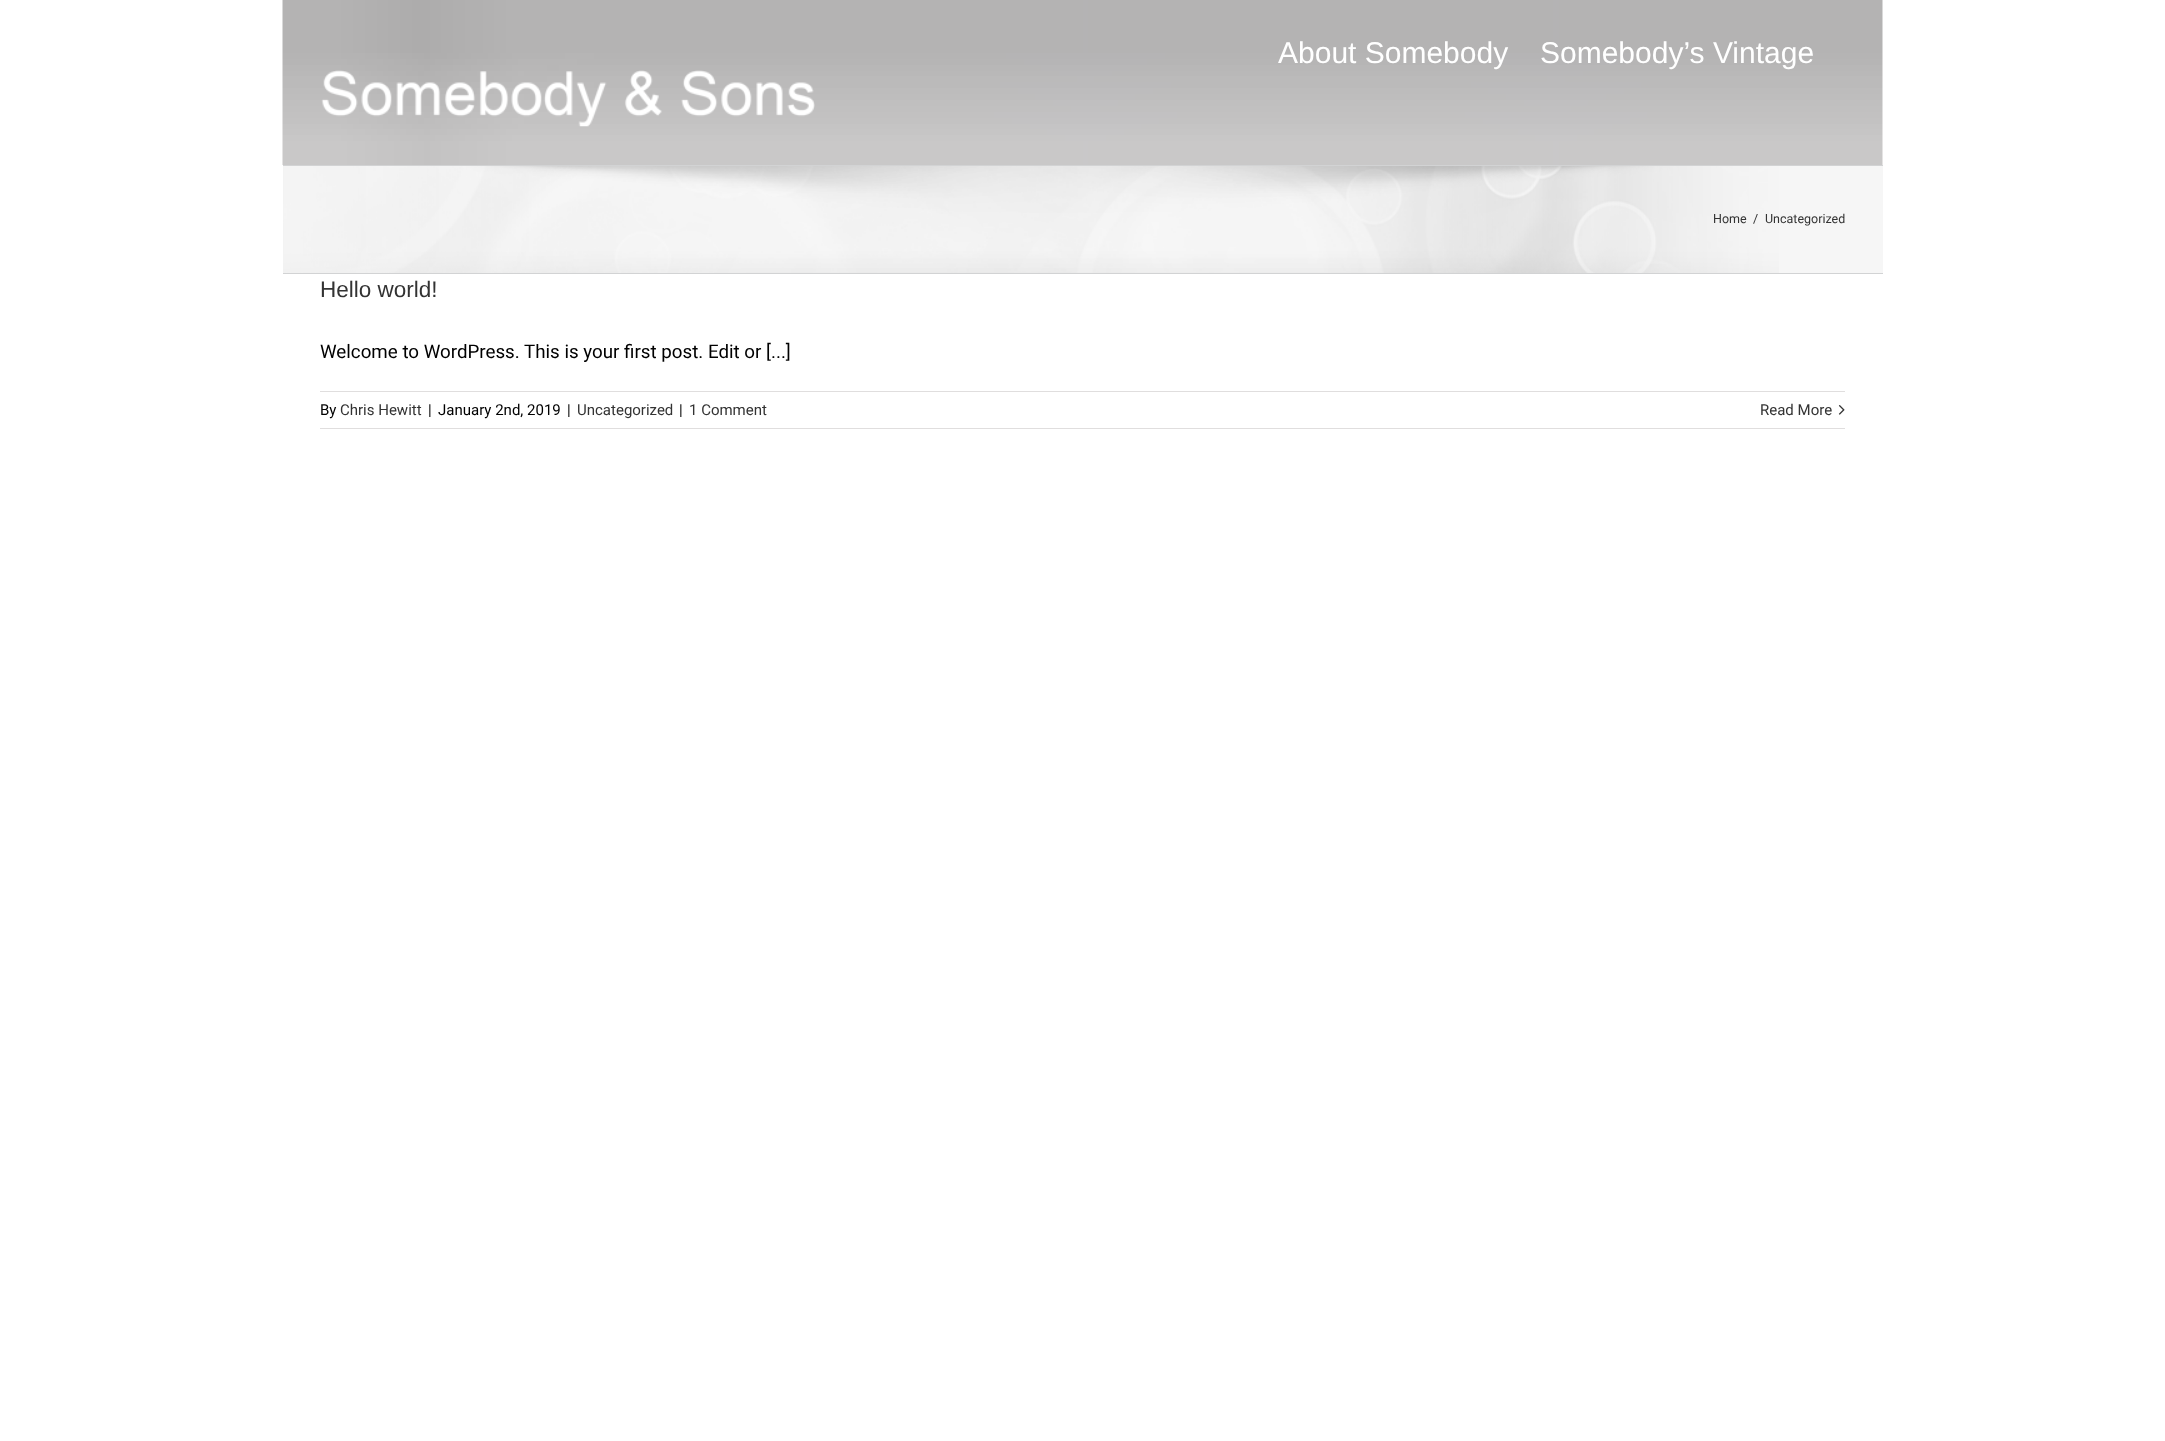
<svg xmlns="http://www.w3.org/2000/svg" width="2165" height="1441" viewBox="0 0 2165 1441">
  <style>
    .t1 { font: 30px Liberation Sans; fill: #fff; }
    .t2 { font: 12.5px Roboto; fill: #333; }
    .t3 { font: 22.5px Liberation Sans; fill: #333; }
    .t4 { font: 18.75px Roboto; fill: #000; }
    .t5 { font: 15px Roboto; fill: #000; }
    .t6 { font: 15px Roboto; fill: #333; }
  </style>
  <rect width="100%" height="100%" fill="#fff"/>
  <image x="282" y="0" width="1601" height="165" href="images/1.png"/>
  <text x="1278" y="63" class="t1">About Somebody</text>
  <text x="1540" y="63" class="t1">Somebody’s Vintage</text>
  <image x="321" y="70" width="494" height="57" href="images/2.png"/>
  <rect x="283" y="166" width="1600" height="107" fill="#f6f6f6"/>
  <image x="283" y="166" width="1496" height="107" href="images/3.png"/>
  <rect x="283" y="165" width="1600" height="1" fill="#d2d3d4"/>
  <rect x="283" y="273" width="1600" height="1" fill="#d2d3d4"/>
  <text x="1713" y="223" class="t2">Home</text>
  <text x="1753" y="223" class="t2">/</text>
  <text x="1765" y="223" class="t2">Uncategorized</text>
  <text x="320" y="297" class="t3">Hello world!</text>
  <text x="320" y="358" class="t4">Welcome to WordPress. This is your first post. Edit or [...]</text>
  <rect x="320" y="391" width="1525" height="1" fill="#e0dede"/>
  <rect x="320" y="428" width="1525" height="1" fill="#e0dede"/>
  <text x="320" y="415" class="t5">By</text>
  <text x="340" y="415" class="t6">Chris Hewitt</text>
  <text x="428" y="415" class="t5">|</text>
  <text x="438" y="415" class="t5">January 2nd, 2019</text>
  <text x="567" y="415" class="t5">|</text>
  <text x="577" y="415" class="t6">Uncategorized</text>
  <text x="679" y="415" class="t5">|</text>
  <text x="689" y="415" class="t6">1 Comment</text>
  <text x="1760" y="415" class="t6">Read More</text>
  <image x="1838" y="405" width="7" height="10" href="images/4.png"/>
</svg>
